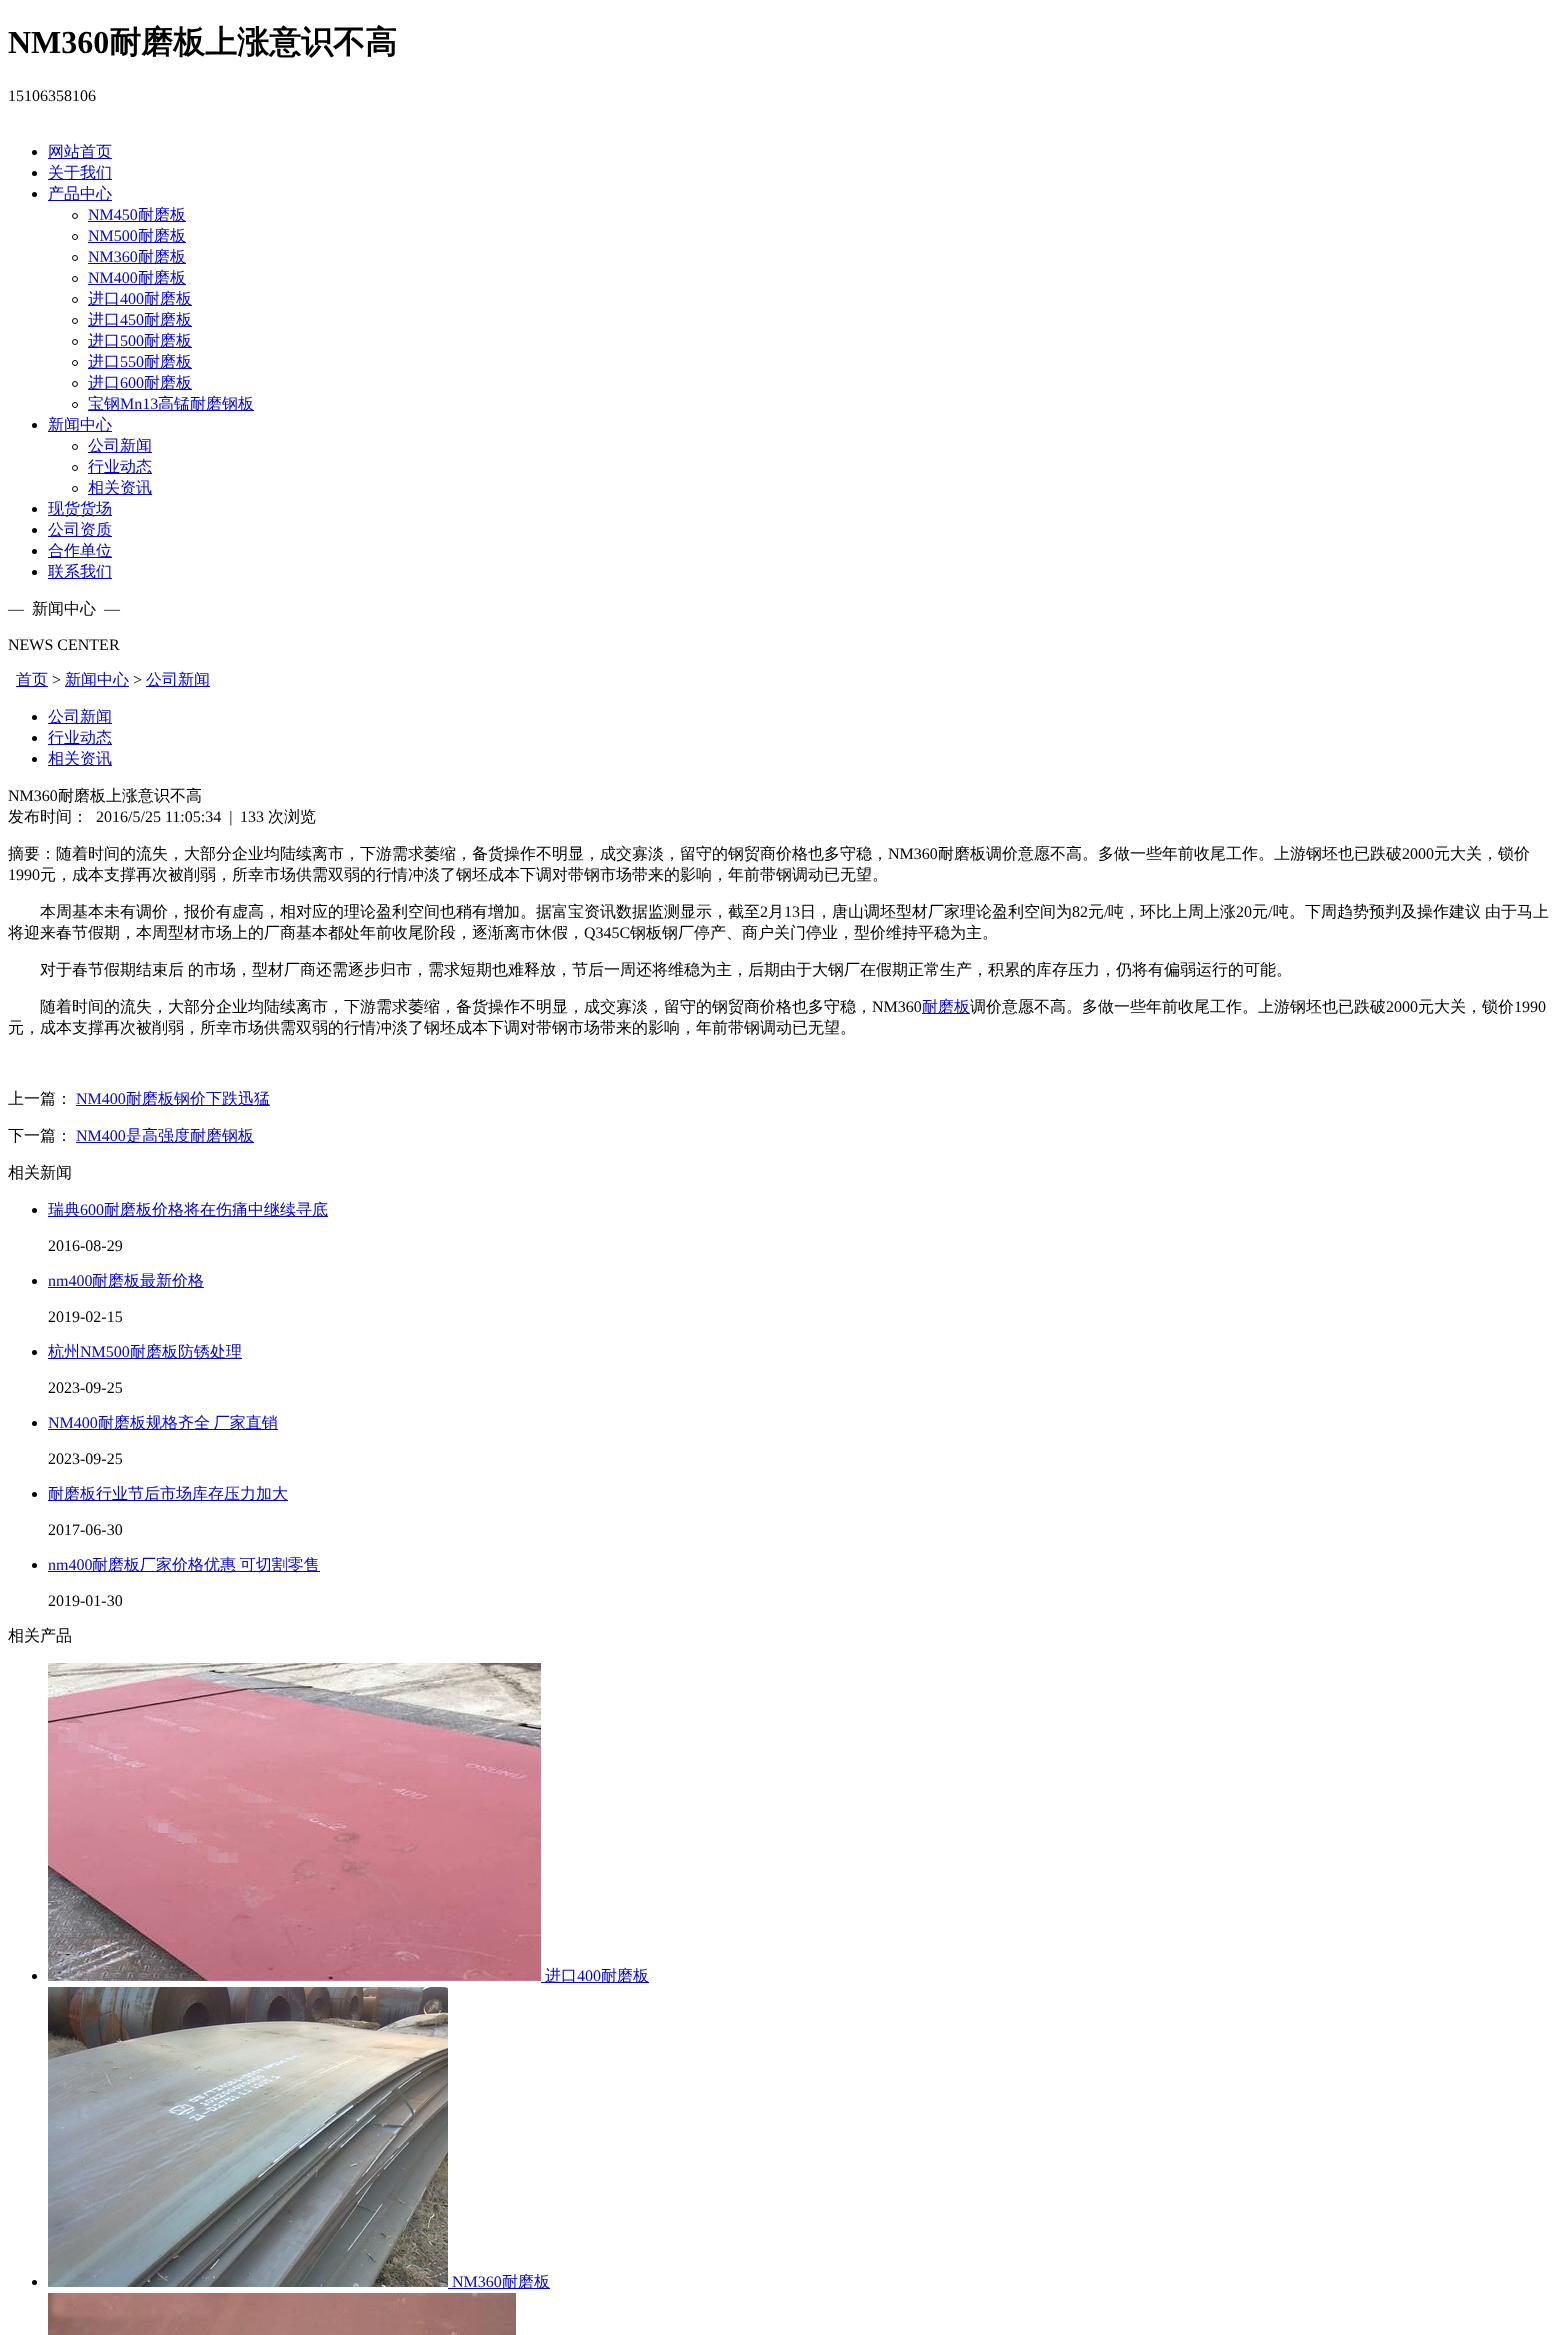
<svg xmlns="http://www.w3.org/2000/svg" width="1562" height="2335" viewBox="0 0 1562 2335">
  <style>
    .t1 { font: bold 32px Liberation Serif; fill: #000; }
    .t2 { font: bold 32px WenQuanYi Zen Hei; fill: #000; }
    .t3 { font: 16px Liberation Serif; fill: #000; }
    .t4 { font: 500 16px WenQuanYi Zen Hei; fill: #00e; }
    .t5 { font: 16px Liberation Serif; fill: #00e; }
    .t6 { font: 500 16px WenQuanYi Zen Hei; fill: #000; }
  </style>
  <rect width="100%" height="100%" fill="#fff"/>
  <text x="8" y="53" class="t1">NM360</text>
  <text x="109" y="53" class="t2">耐磨板上涨意识不高</text>
  <text x="8" y="101" class="t3">15106358106</text>
  <circle cx="34.5" cy="152.5" r="2.5" fill="#000"/>
  <rect x="48" y="158" width="64" height="1" fill="#00e"/>
  <text x="48" y="157" class="t4">网站首页</text>
  <circle cx="34.5" cy="173.5" r="2.5" fill="#000"/>
  <rect x="48" y="179" width="64" height="1" fill="#00e"/>
  <text x="48" y="178" class="t4">关于我们</text>
  <circle cx="34.5" cy="194.5" r="2.5" fill="#000"/>
  <rect x="48" y="200" width="64" height="1" fill="#00e"/>
  <text x="48" y="199" class="t4">产品中心</text>
  <circle cx="75" cy="216" r="2.5" fill="none" stroke="#000"/>
  <text x="88" y="220" class="t5">NM450</text>
  <rect x="88" y="221" width="98" height="1" fill="#00e"/>
  <text x="138" y="220" class="t4">耐磨板</text>
  <circle cx="75" cy="237" r="2.5" fill="none" stroke="#000"/>
  <text x="88" y="241" class="t5">NM500</text>
  <rect x="88" y="242" width="98" height="1" fill="#00e"/>
  <text x="138" y="241" class="t4">耐磨板</text>
  <circle cx="75" cy="258" r="2.5" fill="none" stroke="#000"/>
  <text x="88" y="262" class="t5">NM360</text>
  <rect x="88" y="263" width="98" height="1" fill="#00e"/>
  <text x="138" y="262" class="t4">耐磨板</text>
  <circle cx="75" cy="279" r="2.5" fill="none" stroke="#000"/>
  <text x="88" y="283" class="t5">NM400</text>
  <rect x="88" y="284" width="98" height="1" fill="#00e"/>
  <text x="138" y="283" class="t4">耐磨板</text>
  <circle cx="75" cy="300" r="2.5" fill="none" stroke="#000"/>
  <rect x="88" y="305" width="104" height="1" fill="#00e"/>
  <text x="88" y="304" class="t4">进口</text>
  <text x="120" y="304" class="t5">400</text>
  <text x="144" y="304" class="t4">耐磨板</text>
  <circle cx="75" cy="321" r="2.5" fill="none" stroke="#000"/>
  <rect x="88" y="326" width="104" height="1" fill="#00e"/>
  <text x="88" y="325" class="t4">进口</text>
  <text x="120" y="325" class="t5">450</text>
  <text x="144" y="325" class="t4">耐磨板</text>
  <circle cx="75" cy="342" r="2.5" fill="none" stroke="#000"/>
  <rect x="88" y="347" width="104" height="1" fill="#00e"/>
  <text x="88" y="346" class="t4">进口</text>
  <text x="120" y="346" class="t5">500</text>
  <text x="144" y="346" class="t4">耐磨板</text>
  <circle cx="75" cy="363" r="2.5" fill="none" stroke="#000"/>
  <rect x="88" y="368" width="104" height="1" fill="#00e"/>
  <text x="88" y="367" class="t4">进口</text>
  <text x="120" y="367" class="t5">550</text>
  <text x="144" y="367" class="t4">耐磨板</text>
  <circle cx="75" cy="384" r="2.5" fill="none" stroke="#000"/>
  <rect x="88" y="389" width="104" height="1" fill="#00e"/>
  <text x="88" y="388" class="t4">进口</text>
  <text x="120" y="388" class="t5">600</text>
  <text x="144" y="388" class="t4">耐磨板</text>
  <circle cx="75" cy="405" r="2.5" fill="none" stroke="#000"/>
  <rect x="88" y="410" width="166" height="1" fill="#00e"/>
  <text x="88" y="409" class="t4">宝钢</text>
  <text x="120" y="409" class="t5">Mn13</text>
  <text x="158" y="409" class="t4">高锰耐磨钢板</text>
  <circle cx="34.5" cy="425.5" r="2.5" fill="#000"/>
  <rect x="48" y="431" width="64" height="1" fill="#00e"/>
  <text x="48" y="430" class="t4">新闻中心</text>
  <circle cx="75" cy="447" r="2.5" fill="none" stroke="#000"/>
  <rect x="88" y="452" width="64" height="1" fill="#00e"/>
  <text x="88" y="451" class="t4">公司新闻</text>
  <circle cx="75" cy="468" r="2.5" fill="none" stroke="#000"/>
  <rect x="88" y="473" width="64" height="1" fill="#00e"/>
  <text x="88" y="472" class="t4">行业动态</text>
  <circle cx="75" cy="489" r="2.5" fill="none" stroke="#000"/>
  <rect x="88" y="494" width="64" height="1" fill="#00e"/>
  <text x="88" y="493" class="t4">相关资讯</text>
  <circle cx="34.5" cy="509.5" r="2.5" fill="#000"/>
  <rect x="48" y="515" width="64" height="1" fill="#00e"/>
  <text x="48" y="514" class="t4">现货货场</text>
  <circle cx="34.5" cy="530.5" r="2.5" fill="#000"/>
  <rect x="48" y="536" width="64" height="1" fill="#00e"/>
  <text x="48" y="535" class="t4">公司资质</text>
  <circle cx="34.5" cy="551.5" r="2.5" fill="#000"/>
  <rect x="48" y="557" width="64" height="1" fill="#00e"/>
  <text x="48" y="556" class="t4">合作单位</text>
  <circle cx="34.5" cy="572.5" r="2.5" fill="#000"/>
  <rect x="48" y="578" width="64" height="1" fill="#00e"/>
  <text x="48" y="577" class="t4">联系我们</text>
  <text x="8" y="614" class="t3">—</text>
  <text x="32" y="614" class="t6">新闻中心</text>
  <text x="104" y="614" class="t3">—</text>
  <text x="8" y="650" class="t3">NEWS CENTER</text>
  <rect x="16" y="686" width="32" height="1" fill="#00e"/>
  <text x="16" y="685" class="t4">首页</text>
  <text x="52" y="685" class="t3">&gt;</text>
  <rect x="65" y="686" width="64" height="1" fill="#00e"/>
  <text x="65" y="685" class="t4">新闻中心</text>
  <text x="133" y="685" class="t3">&gt;</text>
  <rect x="146" y="686" width="64" height="1" fill="#00e"/>
  <text x="146" y="685" class="t4">公司新闻</text>
  <circle cx="34.5" cy="717.5" r="2.5" fill="#000"/>
  <rect x="48" y="723" width="64" height="1" fill="#00e"/>
  <text x="48" y="722" class="t4">公司新闻</text>
  <circle cx="34.5" cy="738.5" r="2.5" fill="#000"/>
  <rect x="48" y="744" width="64" height="1" fill="#00e"/>
  <text x="48" y="743" class="t4">行业动态</text>
  <circle cx="34.5" cy="759.5" r="2.5" fill="#000"/>
  <rect x="48" y="765" width="64" height="1" fill="#00e"/>
  <text x="48" y="764" class="t4">相关资讯</text>
  <text x="8" y="801" class="t3">NM360</text>
  <text x="58" y="801" class="t6">耐磨板上涨意识不高</text>
  <text x="8" y="822" class="t6">发布时间：</text>
  <text x="96" y="822" class="t3" xml:space="preserve">2016/5/25 11:05:34  |</text>
  <text x="240" y="822" class="t3">133</text>
  <text x="268" y="822" class="t6">次浏览</text>
  <text x="8" y="859" class="t6">摘要：随着时间的流失，大部分企业均陆续离市，下游需求萎缩，备货操作不明显，成交寡淡，留守的钢贸商价格也多守稳，</text>
  <text x="888" y="859" class="t3">NM360</text>
  <text x="938" y="859" class="t6">耐磨板调价意愿不高。多做一些年前收尾工作。上游钢坯也已跌破</text>
  <text x="1402" y="859" class="t3">2000</text>
  <text x="1434" y="859" class="t6">元大关，锁价</text>
  <text x="8" y="880" class="t3">1990</text>
  <text x="40" y="880" class="t6">元，成本支撑再次被削弱，所幸市场供需双弱的行情冲淡了钢坯成本下调对带钢市场带来的影响，年前带钢调动已无望。</text>
  <text x="40" y="917" class="t6">本周基本未有调价，报价有虚高，相对应的理论盈利空间也稍有增加。据富宝资讯数据监测显示，截至</text>
  <text x="760" y="917" class="t3">2</text>
  <text x="768" y="917" class="t6">月</text>
  <text x="784" y="917" class="t3">13</text>
  <text x="800" y="917" class="t6">日，唐山调坯型材厂家理论盈利空间为</text>
  <text x="1072" y="917" class="t3">82</text>
  <text x="1088" y="917" class="t6">元</text>
  <text x="1104" y="917" class="t3">/</text>
  <text x="1108" y="917" class="t6">吨，环比上周上涨</text>
  <text x="1236" y="917" class="t3">20</text>
  <text x="1252" y="917" class="t6">元</text>
  <text x="1268" y="917" class="t3">/</text>
  <text x="1273" y="917" class="t6">吨。下周趋势预判及操作建议</text>
  <text x="1485" y="917" class="t6">由于马上</text>
  <text x="8" y="938" class="t6">将迎来春节假期，本周型材市场上的厂商基本都处年前收尾阶段，逐渐离市休假，</text>
  <text x="584" y="938" class="t3">Q345C</text>
  <text x="630" y="938" class="t6">钢板钢厂停产、商户关门停业，型价维持平稳为主。</text>
  <text x="40" y="975" class="t6">对于春节假期结束后</text>
  <text x="188" y="975" class="t6">的市场，型材厂商还需逐步归市，需求短期也难释放，节后一周还将维稳为主，后期由于大钢厂在假期正常生产，积累的库存压力，仍将有偏弱运行的可能。</text>
  <text x="40" y="1012" class="t6">随着时间的流失，大部分企业均陆续离市，下游需求萎缩，备货操作不明显，成交寡淡，留守的钢贸商价格也多守稳，</text>
  <text x="872" y="1012" class="t3">NM360</text>
  <rect x="922" y="1013" width="48" height="1" fill="#00e"/>
  <text x="922" y="1012" class="t4">耐磨板</text>
  <text x="970" y="1012" class="t6">调价意愿不高。多做一些年前收尾工作。上游钢坯也已跌破</text>
  <text x="1386" y="1012" class="t3">2000</text>
  <text x="1418" y="1012" class="t6">元大关，锁价</text>
  <text x="1514" y="1012" class="t3">1990</text>
  <text x="8" y="1033" class="t6">元，成本支撑再次被削弱，所幸市场供需双弱的行情冲淡了钢坯成本下调对带钢市场带来的影响，年前带钢调动已无望。</text>
  <text x="8" y="1104" class="t6">上一篇：</text>
  <text x="76" y="1104" class="t5">NM400</text>
  <rect x="76" y="1105" width="194" height="1" fill="#00e"/>
  <text x="126" y="1104" class="t4">耐磨板钢价下跌迅猛</text>
  <text x="8" y="1141" class="t6">下一篇：</text>
  <text x="76" y="1141" class="t5">NM400</text>
  <rect x="76" y="1142" width="178" height="1" fill="#00e"/>
  <text x="126" y="1141" class="t4">是高强度耐磨钢板</text>
  <text x="8" y="1178" class="t6">相关新闻</text>
  <circle cx="34.5" cy="1210.5" r="2.5" fill="#000"/>
  <rect x="48" y="1216" width="280" height="1" fill="#00e"/>
  <text x="48" y="1215" class="t4">瑞典</text>
  <text x="80" y="1215" class="t5">600</text>
  <text x="104" y="1215" class="t4">耐磨板价格将在伤痛中继续寻底</text>
  <text x="48" y="1251" class="t3">2016-08-29</text>
  <circle cx="34.5" cy="1281.5" r="2.5" fill="#000"/>
  <text x="48" y="1286" class="t5">nm400</text>
  <rect x="48" y="1287" width="156" height="1" fill="#00e"/>
  <text x="92" y="1286" class="t4">耐磨板最新价格</text>
  <text x="48" y="1322" class="t3">2019-02-15</text>
  <circle cx="34.5" cy="1352.5" r="2.5" fill="#000"/>
  <rect x="48" y="1358" width="194" height="1" fill="#00e"/>
  <text x="48" y="1357" class="t4">杭州</text>
  <text x="80" y="1357" class="t5">NM500</text>
  <text x="130" y="1357" class="t4">耐磨板防锈处理</text>
  <text x="48" y="1393" class="t3">2023-09-25</text>
  <circle cx="34.5" cy="1423.5" r="2.5" fill="#000"/>
  <text x="48" y="1428" class="t5">NM400</text>
  <rect x="48" y="1429" width="230" height="1" fill="#00e"/>
  <text x="98" y="1428" word-spacing="-1" class="t4">耐磨板规格齐全 厂家直销</text>
  <text x="48" y="1464" class="t3">2023-09-25</text>
  <circle cx="34.5" cy="1494.5" r="2.5" fill="#000"/>
  <rect x="48" y="1500" width="240" height="1" fill="#00e"/>
  <text x="48" y="1499" class="t4">耐磨板行业节后市场库存压力加大</text>
  <text x="48" y="1535" class="t3">2017-06-30</text>
  <circle cx="34.5" cy="1565.5" r="2.5" fill="#000"/>
  <text x="48" y="1570" class="t5">nm400</text>
  <rect x="48" y="1571" width="272" height="1" fill="#00e"/>
  <text x="92" y="1570" word-spacing="-1" class="t4">耐磨板厂家价格优惠 可切割零售</text>
  <text x="48" y="1606" class="t3">2019-01-30</text>
  <text x="8" y="1641" class="t6">相关产品</text>
  <circle cx="34.5" cy="1976.5" r="2.5" fill="#000"/>
  <image x="48" y="1663" width="493" height="318" href="images/1.png"/>
  <rect x="541" y="1982" width="108" height="1" fill="#00e"/>
  <text x="545" y="1981" class="t4">进口</text>
  <text x="577" y="1981" class="t5">400</text>
  <text x="601" y="1981" class="t4">耐磨板</text>
  <circle cx="34.5" cy="2282.5" r="2.5" fill="#000"/>
  <image x="48" y="1987" width="400" height="300" href="images/2.png"/>
  <text x="452" y="2287" class="t5">NM360</text>
  <rect x="448" y="2288" width="102" height="1" fill="#00e"/>
  <text x="502" y="2287" class="t4">耐磨板</text>
  <image x="48" y="2293" width="468" height="42" href="images/3.png"/>
</svg>
